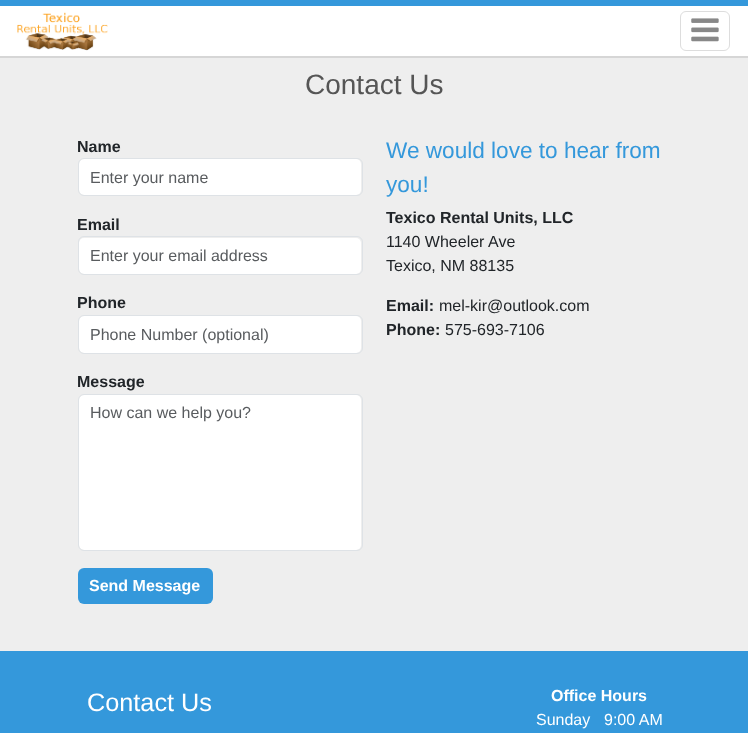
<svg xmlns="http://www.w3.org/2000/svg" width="748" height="733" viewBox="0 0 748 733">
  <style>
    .t1 { font: 28px Liberation Sans; fill: #555; }
    .t2 { font: bold 16px Liberation Sans; fill: #212529; }
    .t3 { font: 16px Liberation Sans; fill: #595c5f; }
    .t4 { font: bold 16px Liberation Sans; fill: #fff; }
    .t5 { font: 22.6px Liberation Sans; fill: #3498db; }
    .t6 { font: 16px Liberation Sans; fill: #212529; }
    .t7 { font: 25.25px Liberation Sans; fill: #fff; }
    .t8 { font: 16px Liberation Sans; fill: #fff; }
  </style>
  <defs>
    <clipPath id="clip1"><rect x="90" y="168" width="259" height="18"/></clipPath>
  </defs>
  <rect width="100%" height="100%" fill="#eee"/>
  <path d="M0 56V58H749V1V56Z" fill="#d6d6d6"/>
  <rect x="0" y="6" width="748" height="50" fill="#fff"/>
  <rect x="0" y="0" width="748" height="6" fill="#3498db"/>
  <image x="17" y="12" width="91" height="39" href="images/1.png"/>
  <rect x="680.5" y="11.5" width="49" height="39" rx="5.5" fill="none" stroke="#ddd"/>
  <image x="691" y="18" width="28" height="24" href="images/2.png"/>
  <text x="305" y="94" class="t1">Contact Us</text>
  <text x="77" y="152" class="t2">Name</text>
  <rect x="79" y="159" width="282" height="36" rx="5" fill="#fff"/>
  <rect x="78.5" y="158.5" width="284" height="37" rx="5.5" fill="none" stroke="#dee2e6"/>
  <g clip-path="url(#clip1)">
    <text x="90" y="183" class="t3">Enter your name</text>
  </g>
  <text x="77" y="230" class="t2">Email</text>
  <rect x="79" y="238" width="282" height="36" rx="5" fill="#fff"/>
  <rect x="78.5" y="236.5" width="284" height="38" rx="5.5" fill="none" stroke="#dee2e6"/>
  <text x="90" y="261" class="t3">Enter your email address</text>
  <text x="77" y="308" class="t2">Phone</text>
  <rect x="79" y="316" width="282" height="37" rx="5" fill="#fff"/>
  <rect x="78.5" y="315.5" width="284" height="38" rx="5.5" fill="none" stroke="#dee2e6"/>
  <text x="90" y="340" class="t3">Phone Number (optional)</text>
  <text x="77" y="387" class="t2">Message</text>
  <rect x="79" y="395" width="282" height="155" rx="5" fill="#fff"/>
  <rect x="78.5" y="394.5" width="284" height="156" rx="5.5" fill="none" stroke="#dee2e6"/>
  <text x="90" y="418" class="t3">How can we help you?</text>
  <rect x="78" y="568" width="135" height="36" rx="6" fill="#3498db"/>
  <text x="89" y="591" class="t4">Send Message</text>
  <text x="386" y="158" class="t5">We would love to hear from</text>
  <text x="386" y="192" class="t5">you!</text>
  <text x="386" y="223" class="t2">Texico Rental Units, LLC</text>
  <text x="386" y="247" class="t6">1140 Wheeler Ave</text>
  <text x="386" y="271" class="t6">Texico, NM 88135</text>
  <text x="386" y="311" class="t2">Email:</text>
  <text x="439" y="311" class="t6">mel-kir@outlook.com</text>
  <text x="386" y="335" class="t2">Phone:</text>
  <text x="445" y="335" class="t6">575-693-7106</text>
  <rect x="0" y="651" width="748" height="82" fill="#3498db"/>
  <text x="87" y="711" class="t7">Contact Us</text>
  <text x="551" y="701" class="t4">Office Hours</text>
  <text x="536" y="725" class="t8">Sunday</text>
  <text x="604" y="725" class="t8">9:00 AM</text>
</svg>
